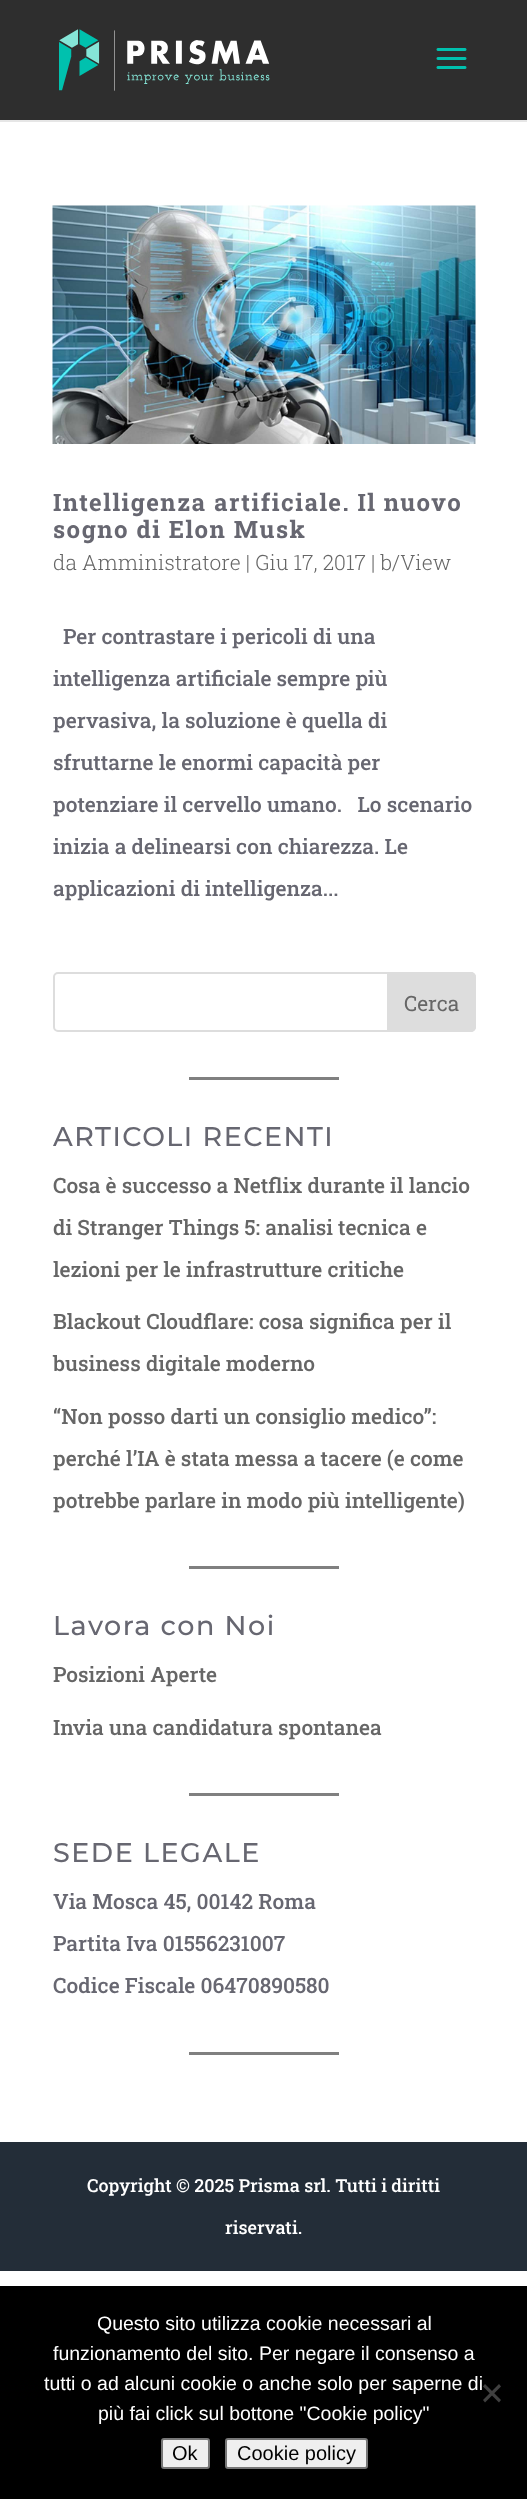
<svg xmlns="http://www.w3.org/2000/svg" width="527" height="2499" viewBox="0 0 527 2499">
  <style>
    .t1 { font: bold 24px Roboto Slab; letter-spacing: 1.5px; fill: #676771; }
    .t2 { font: 300 21px Roboto Slab; fill: #666; }
    .t3 { font: 500 21px Roboto Slab; fill: #676771; }
    .t4 { font: 21px Roboto Slab; fill: #666; }
    .t5 { font: 500 27px Montserrat; letter-spacing: 1.5px; fill: #676771; }
    .t6 { font: 500 21px Roboto Slab; fill: #666; }
    .t7 { font: 500 18px Roboto Slab; fill: #fff; }
    .t8 { font: 19.5px Liberation Sans; fill: #fff; }
    .t9 { font: 20px Liberation Sans; fill: #000; }
  </style>
  <rect width="100%" height="100%" fill="#fff"/>
  <rect x="0" y="120" width="527" height="2" fill="#e6e6e6"/>
  <rect x="0" y="0" width="527" height="120" fill="#2e2e2e"/>
  <image x="59" y="29" width="211" height="62" href="images/1.png"/>
  <image x="436" y="48" width="31" height="21" href="images/2.png"/>
  <image x="52" y="205" width="424" height="239" href="images/3.png"/>
  <text x="53" y="511" class="t1">Intelligenza artificiale. Il nuovo</text>
  <text x="53" y="538" class="t1">sogno di Elon Musk</text>
  <text x="53" y="570" class="t2">da Amministratore | Giu 17, 2017 | b/View</text>
  <text x="63" y="644" class="t3">Per contrastare i pericoli di una</text>
  <text x="53" y="686" class="t3">intelligenza artificiale sempre più</text>
  <text x="53" y="728" class="t3">pervasiva, la soluzione è quella di</text>
  <text x="53" y="770" class="t3">sfruttarne le enormi capacità per</text>
  <text x="53" y="812" class="t3" xml:space="preserve">potenziare il cervello umano.   Lo scenario</text>
  <text x="53" y="854" class="t3">inizia a delinearsi con chiarezza. Le</text>
  <text x="53" y="896" class="t3">applicazioni di intelligenza...</text>
  <rect x="54" y="973" width="421" height="58" rx="4" fill="none" stroke="#ddd" stroke-width="2"/>
  <path d="M388 973H471C473 973 475 975 475 977V1027C475 1029 473 1031 471 1031H388Z" fill="#ddd" stroke="#ddd" stroke-width="2"/>
  <text x="404" y="1011" class="t4">Cerca</text>
  <rect x="189" y="1077" width="150" height="3" fill="#808080"/>
  <text x="53" y="1146" class="t5">ARTICOLI RECENTI</text>
  <text x="53" y="1193" class="t6">Cosa è successo a Netflix durante il lancio</text>
  <text x="53" y="1235" class="t6">di Stranger Things 5: analisi tecnica e</text>
  <text x="53" y="1277" class="t6">lezioni per le infrastrutture critiche</text>
  <text x="53" y="1329" class="t6">Blackout Cloudflare: cosa significa per il</text>
  <text x="53" y="1371" class="t6">business digitale moderno</text>
  <text x="53" y="1424" class="t6">“Non posso darti un consiglio medico”:</text>
  <text x="53" y="1466" class="t6">perché l’IA è stata messa a tacere (e come</text>
  <text x="53" y="1508" class="t6">potrebbe parlare in modo più intelligente)</text>
  <rect x="189" y="1566" width="150" height="3" fill="#808080"/>
  <text x="53" y="1635" class="t5">Lavora con Noi</text>
  <text x="53" y="1682" class="t6">Posizioni Aperte</text>
  <text x="53" y="1735" class="t6">Invia una candidatura spontanea</text>
  <rect x="189" y="1793" width="150" height="3" fill="#808080"/>
  <text x="53" y="1862" class="t5">SEDE LEGALE</text>
  <text x="53" y="1909" class="t3">Via Mosca 45, 00142 Roma</text>
  <text x="53" y="1951" class="t3">Partita Iva 01556231007</text>
  <text x="53" y="1993" class="t3">Codice Fiscale 06470890580</text>
  <rect x="189" y="2052" width="150" height="3" fill="#808080"/>
  <rect x="0" y="2142" width="527" height="129" fill="#232d38"/>
  <text x="87" y="2192" class="t7">Copyright © 2025 Prisma srl. Tutti i diritti</text>
  <text x="225" y="2234" class="t7">riservati.</text>
  <rect x="0" y="2286" width="527" height="213" fill="#000"/>
  <text x="97" y="2330" class="t8">Questo sito utilizza cookie necessari al</text>
  <text x="53" y="2360" class="t8">funzionamento del sito. Per negare il consenso a</text>
  <text x="44" y="2390" class="t8">tutti o ad alcuni cookie o anche solo per saperne di</text>
  <text x="98" y="2420" class="t8">più fai click sul bottone "Cookie policy"</text>
  <path d="M499 2384L501 2386.5L485 2402.5L483 2400Z" fill="#404040"/>
  <path d="M483 2386.5L485 2384L501 2400L499 2402.5Z" fill="#404040"/>
  <rect x="162" y="2439" width="47" height="29" rx="2" fill="#efefef" stroke="#767676" stroke-width="2"/>
  <text x="172" y="2460" class="t9">Ok</text>
  <rect x="226" y="2439" width="141" height="29" rx="2" fill="#efefef" stroke="#767676" stroke-width="2"/>
  <text x="237" y="2460" class="t9">Cookie policy</text>
</svg>
